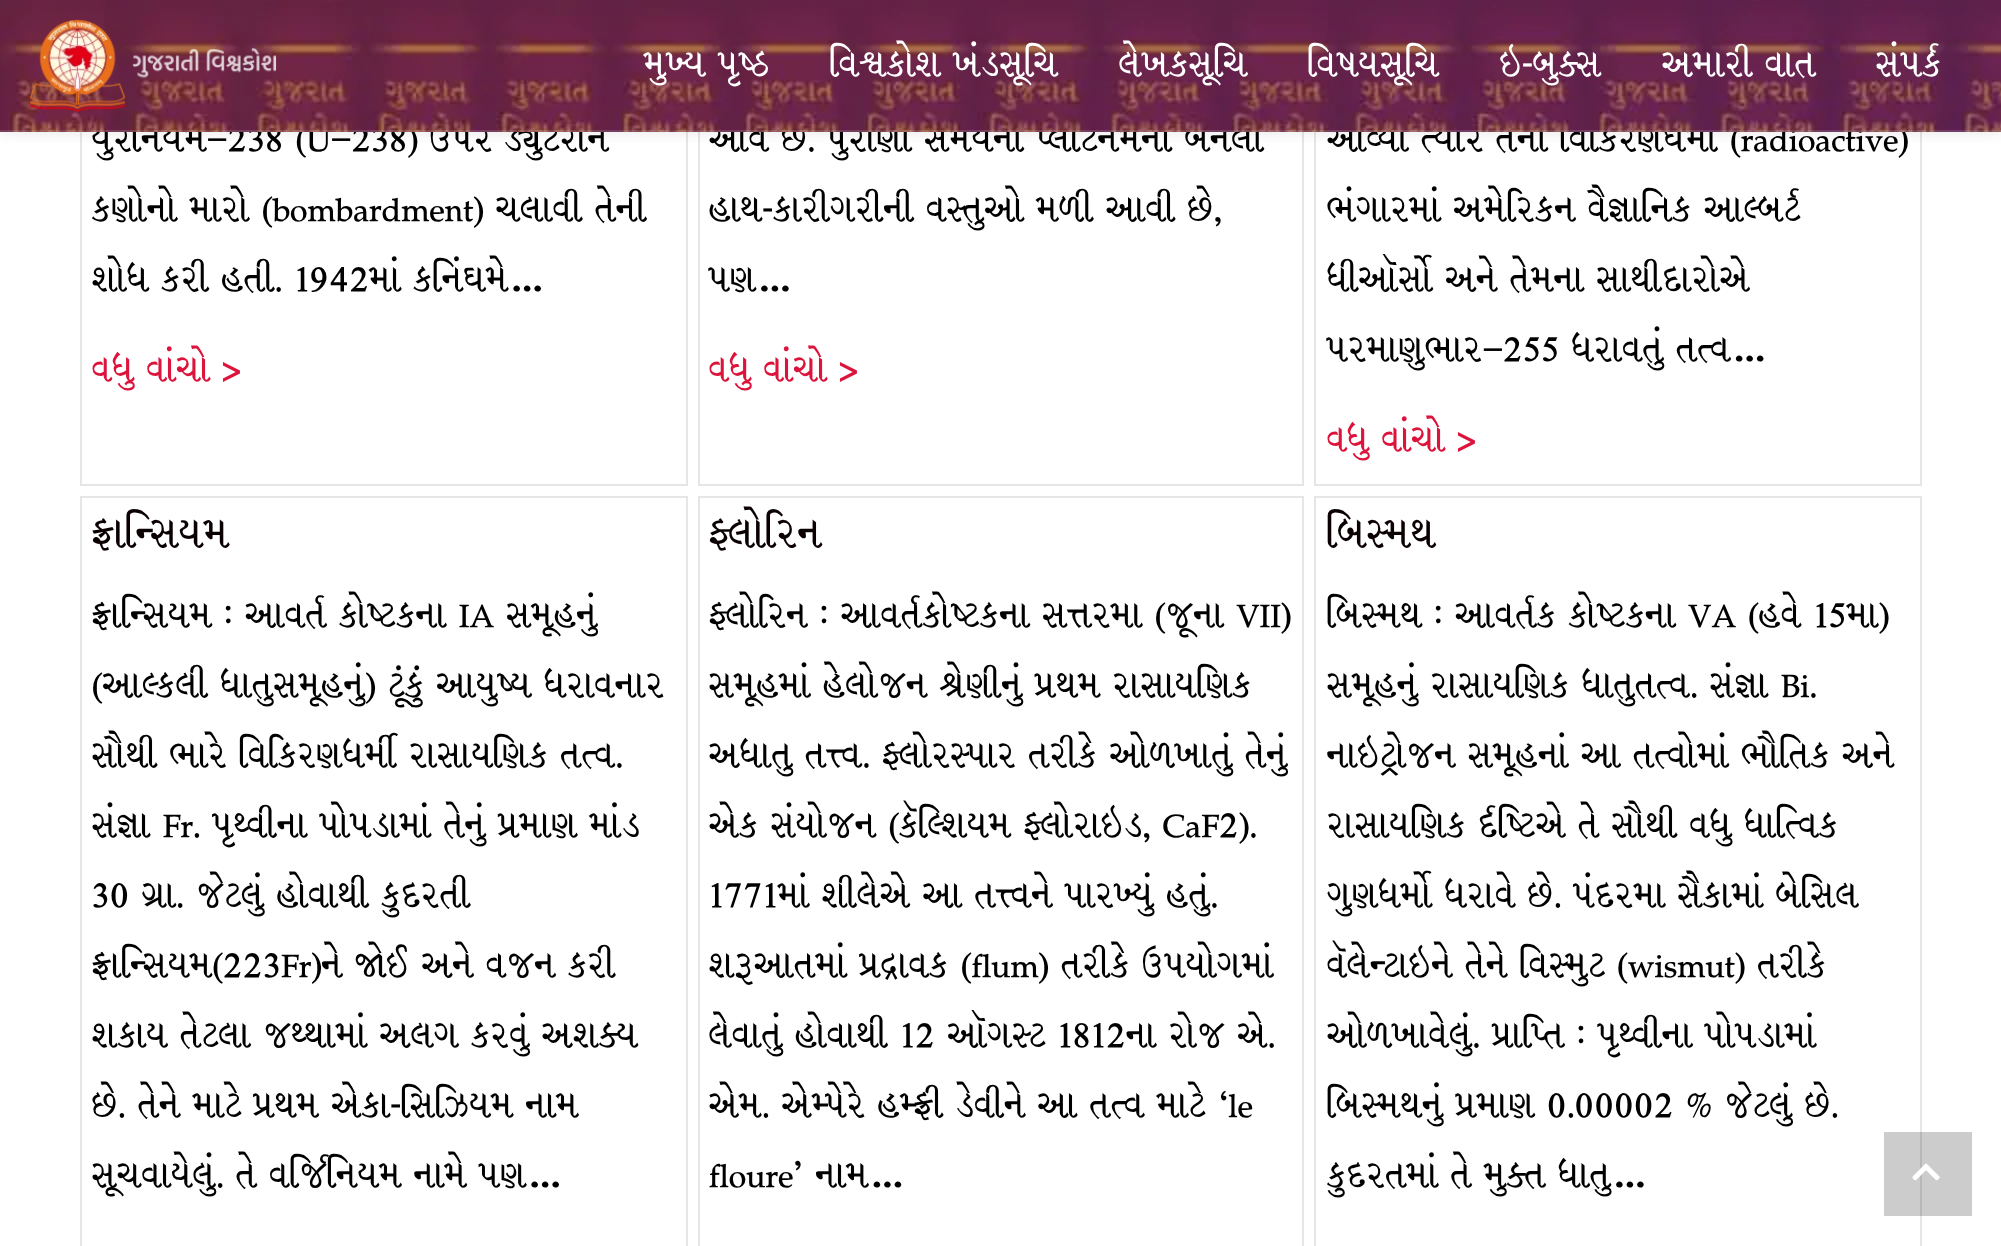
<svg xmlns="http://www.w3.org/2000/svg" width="2001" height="1246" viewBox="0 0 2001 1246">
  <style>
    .t1 { font: 42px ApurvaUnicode; fill: #000; }
    .t2 { font: 42px ApurvaUnicode; fill: #fff; }
    .t3 { font: 42px ApurvaUnicode; fill: #dc143c; }
    .t4 { font: 48px ApurvaUnicode; fill: #0a0002; }
  </style>
  <defs>
    <clipPath id="clip1"><rect x="82" y="0" width="604" height="484"/></clipPath>
    <clipPath id="clip2"><rect x="82" y="498" width="604" height="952"/></clipPath>
    <clipPath id="clip3"><rect x="700" y="498" width="602" height="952"/></clipPath>
    <clipPath id="clip4"><rect x="1316" y="498" width="604" height="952"/></clipPath>
  </defs>
  <rect width="100%" height="100%" fill="#fff"/>
  <rect x="81" y="-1" width="606" height="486" fill="none" stroke="#e6e6e6" stroke-width="2"/>
  <rect x="699" y="-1" width="604" height="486" fill="none" stroke="#e6e6e6" stroke-width="2"/>
  <rect x="1315" y="-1" width="606" height="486" fill="none" stroke="#e6e6e6" stroke-width="2"/>
  <rect x="0" y="0" width="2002" height="132" fill="#0000001a" filter="blur(7px)"/>
  <g clip-path="url(#clip1)">
    <text x="92" y="151" class="t1">યુરેનિયમ–238 (U–238) ઉપર ડ્યુટેરોન</text>
  </g>
  <text x="709" y="151" class="t1">આવે છે. પુરાણા સમયની પ્લૅટિનમની બનેલી</text>
  <text x="1327" y="151" class="t1">આવ્યો ત્યારે તેના વિકિરણધર્મી (radioactive)</text>
  <image x="0" y="0" width="2001" height="132" href="images/1.png"/>
  <rect x="0" y="130" width="2001" height="2" fill="#ffffff21"/>
  <image x="30" y="19" width="247" height="93" href="images/2.png"/>
  <text x="644" y="76" class="t2">મુખ્ય પૃષ્ઠ</text>
  <text x="830" y="76" class="t2">વિશ્વકોશ ખંડસૂચિ</text>
  <text x="1119" y="76" class="t2">લેખકસૂચિ</text>
  <text x="1308" y="76" class="t2">વિષયસૂચિ</text>
  <text x="1500" y="76" class="t2">ઇ-બુક્સ</text>
  <text x="1662" y="76" class="t2">અમારી વાત</text>
  <text x="1876" y="76" class="t2">સંપર્ક</text>
  <text x="92" y="221" class="t1">કણોનો મારો (bombardment) ચલાવી તેની</text>
  <text x="92" y="291" class="t1">શોધ કરી હતી. 1942માં કનિંઘમે…</text>
  <text x="92" y="381" class="t3">વધુ વાંચો &gt;</text>
  <text x="709" y="221" class="t1">હાથ-કારીગરીની વસ્તુઓ મળી આવી છે,</text>
  <text x="709" y="291" class="t1">પણ…</text>
  <text x="709" y="381" class="t3">વધુ વાંચો &gt;</text>
  <text x="1327" y="221" class="t1">ભંગારમાં અમેરિકન વૈજ્ઞાનિક આલ્બર્ટ</text>
  <text x="1327" y="291" class="t1">ધીઑર્સો અને તેમના સાથીદારોએ</text>
  <text x="1327" y="361" class="t1">પરમાણુભાર–255 ધરાવતું તત્વ…</text>
  <text x="1327" y="451" class="t3">વધુ વાંચો &gt;</text>
  <rect x="81" y="497" width="606" height="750" fill="none" stroke="#e6e6e6" stroke-width="2"/>
  <text x="92" y="547" class="t4">ફ્રાન્સિયમ</text>
  <text x="92" y="627" class="t1">ફ્રાન્સિયમ : આવર્ત કોષ્ટકના IA સમૂહનું</text>
  <text x="92" y="697" class="t1">(આલ્કલી ધાતુસમૂહનું) ટૂંકું આયુષ્ય ધરાવનાર</text>
  <g clip-path="url(#clip2)">
    <text x="92" y="767" class="t1">સૌથી ભારે વિકિરણધર્મી રાસાયણિક તત્વ.</text>
  </g>
  <text x="92" y="837" class="t1">સંજ્ઞા Fr. પૃથ્વીના પોપડામાં તેનું પ્રમાણ માંડ</text>
  <text x="92" y="907" class="t1">30 ગ્રા. જેટલું હોવાથી કુદરતી</text>
  <text x="92" y="977" class="t1">ફ્રાન્સિયમ(223Fr)ને જોઈ અને વજન કરી</text>
  <text x="92" y="1047" class="t1">શકાય તેટલા જથ્થામાં અલગ કરવું અશક્ય</text>
  <g clip-path="url(#clip2)">
    <text x="92" y="1117" class="t1">છે. તેને માટે પ્રથમ એકા-સિઝિયમ નામ</text>
    <text x="92" y="1187" class="t1">સૂચવાયેલું. તે વર્જિનિયમ નામે પણ…</text>
  </g>
  <rect x="699" y="497" width="604" height="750" fill="none" stroke="#e6e6e6" stroke-width="2"/>
  <text x="709" y="547" class="t4">ફ્લોરિન</text>
  <text x="709" y="627" class="t1">ફ્લોરિન : આવર્તકોષ્ટકના સત્તરમા (જૂના VII)</text>
  <text x="709" y="697" class="t1">સમૂહમાં હેલોજન શ્રેણીનું પ્રથમ રાસાયણિક</text>
  <text x="709" y="767" class="t1">અધાતુ તત્ત્વ. ફ્લોરસ્પાર તરીકે ઓળખાતું તેનું</text>
  <text x="709" y="837" class="t1">એક સંયોજન (કૅલ્શિયમ ફ્લોરાઇડ, CaF2).</text>
  <text x="709" y="907" class="t1">1771માં શીલેએ આ તત્ત્વને પારખ્યું હતું.</text>
  <text x="709" y="977" class="t1">શરૂઆતમાં પ્રદ્રાવક (flum) તરીકે ઉપયોગમાં</text>
  <g clip-path="url(#clip3)">
    <text x="709" y="1047" class="t1">લેવાતું હોવાથી 12 ઑગસ્ટ 1812ના રોજ એ.</text>
  </g>
  <text x="709" y="1117" class="t1">એમ. એમ્પેરે હમ્ફ્રી ડેવીને આ તત્વ માટે ‘le</text>
  <text x="709" y="1187" class="t1">floure’ નામ…</text>
  <rect x="1315" y="497" width="606" height="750" fill="none" stroke="#e6e6e6" stroke-width="2"/>
  <text x="1327" y="547" class="t4">બિસ્મથ</text>
  <text x="1327" y="627" class="t1">બિસ્મથ : આવર્તક કોષ્ટકના VA (હવે 15મા)</text>
  <text x="1327" y="697" class="t1">સમૂહનું રાસાયણિક ધાતુતત્વ. સંજ્ઞા Bi.</text>
  <text x="1327" y="767" class="t1">નાઇટ્રોજન સમૂહનાં આ તત્વોમાં ભૌતિક અને</text>
  <text x="1327" y="837" class="t1">રાસાયણિક ર્દષ્ટિએ તે સૌથી વધુ ધાત્વિક</text>
  <g clip-path="url(#clip4)">
    <text x="1327" y="907" class="t1">ગુણધર્મો ધરાવે છે. પંદરમા સૈકામાં બેસિલ</text>
    <text x="1327" y="977" class="t1">વૅલેન્ટાઇને તેને વિસ્મુટ (wismut) તરીકે</text>
  </g>
  <text x="1327" y="1047" class="t1">ઓળખાવેલું. પ્રાપ્તિ : પૃથ્વીના પોપડામાં</text>
  <text x="1327" y="1117" class="t1">બિસ્મથનું પ્રમાણ 0.00002 % જેટલું છે.</text>
  <g clip-path="url(#clip4)">
    <text x="1327" y="1187" class="t1">કુદરતમાં તે મુક્ત ધાતુ…</text>
  </g>
  <rect x="1884" y="1132" width="88" height="84" fill="#00000033"/>
  <image x="1912" y="1163" width="28" height="18" href="images/3.png"/>
</svg>
